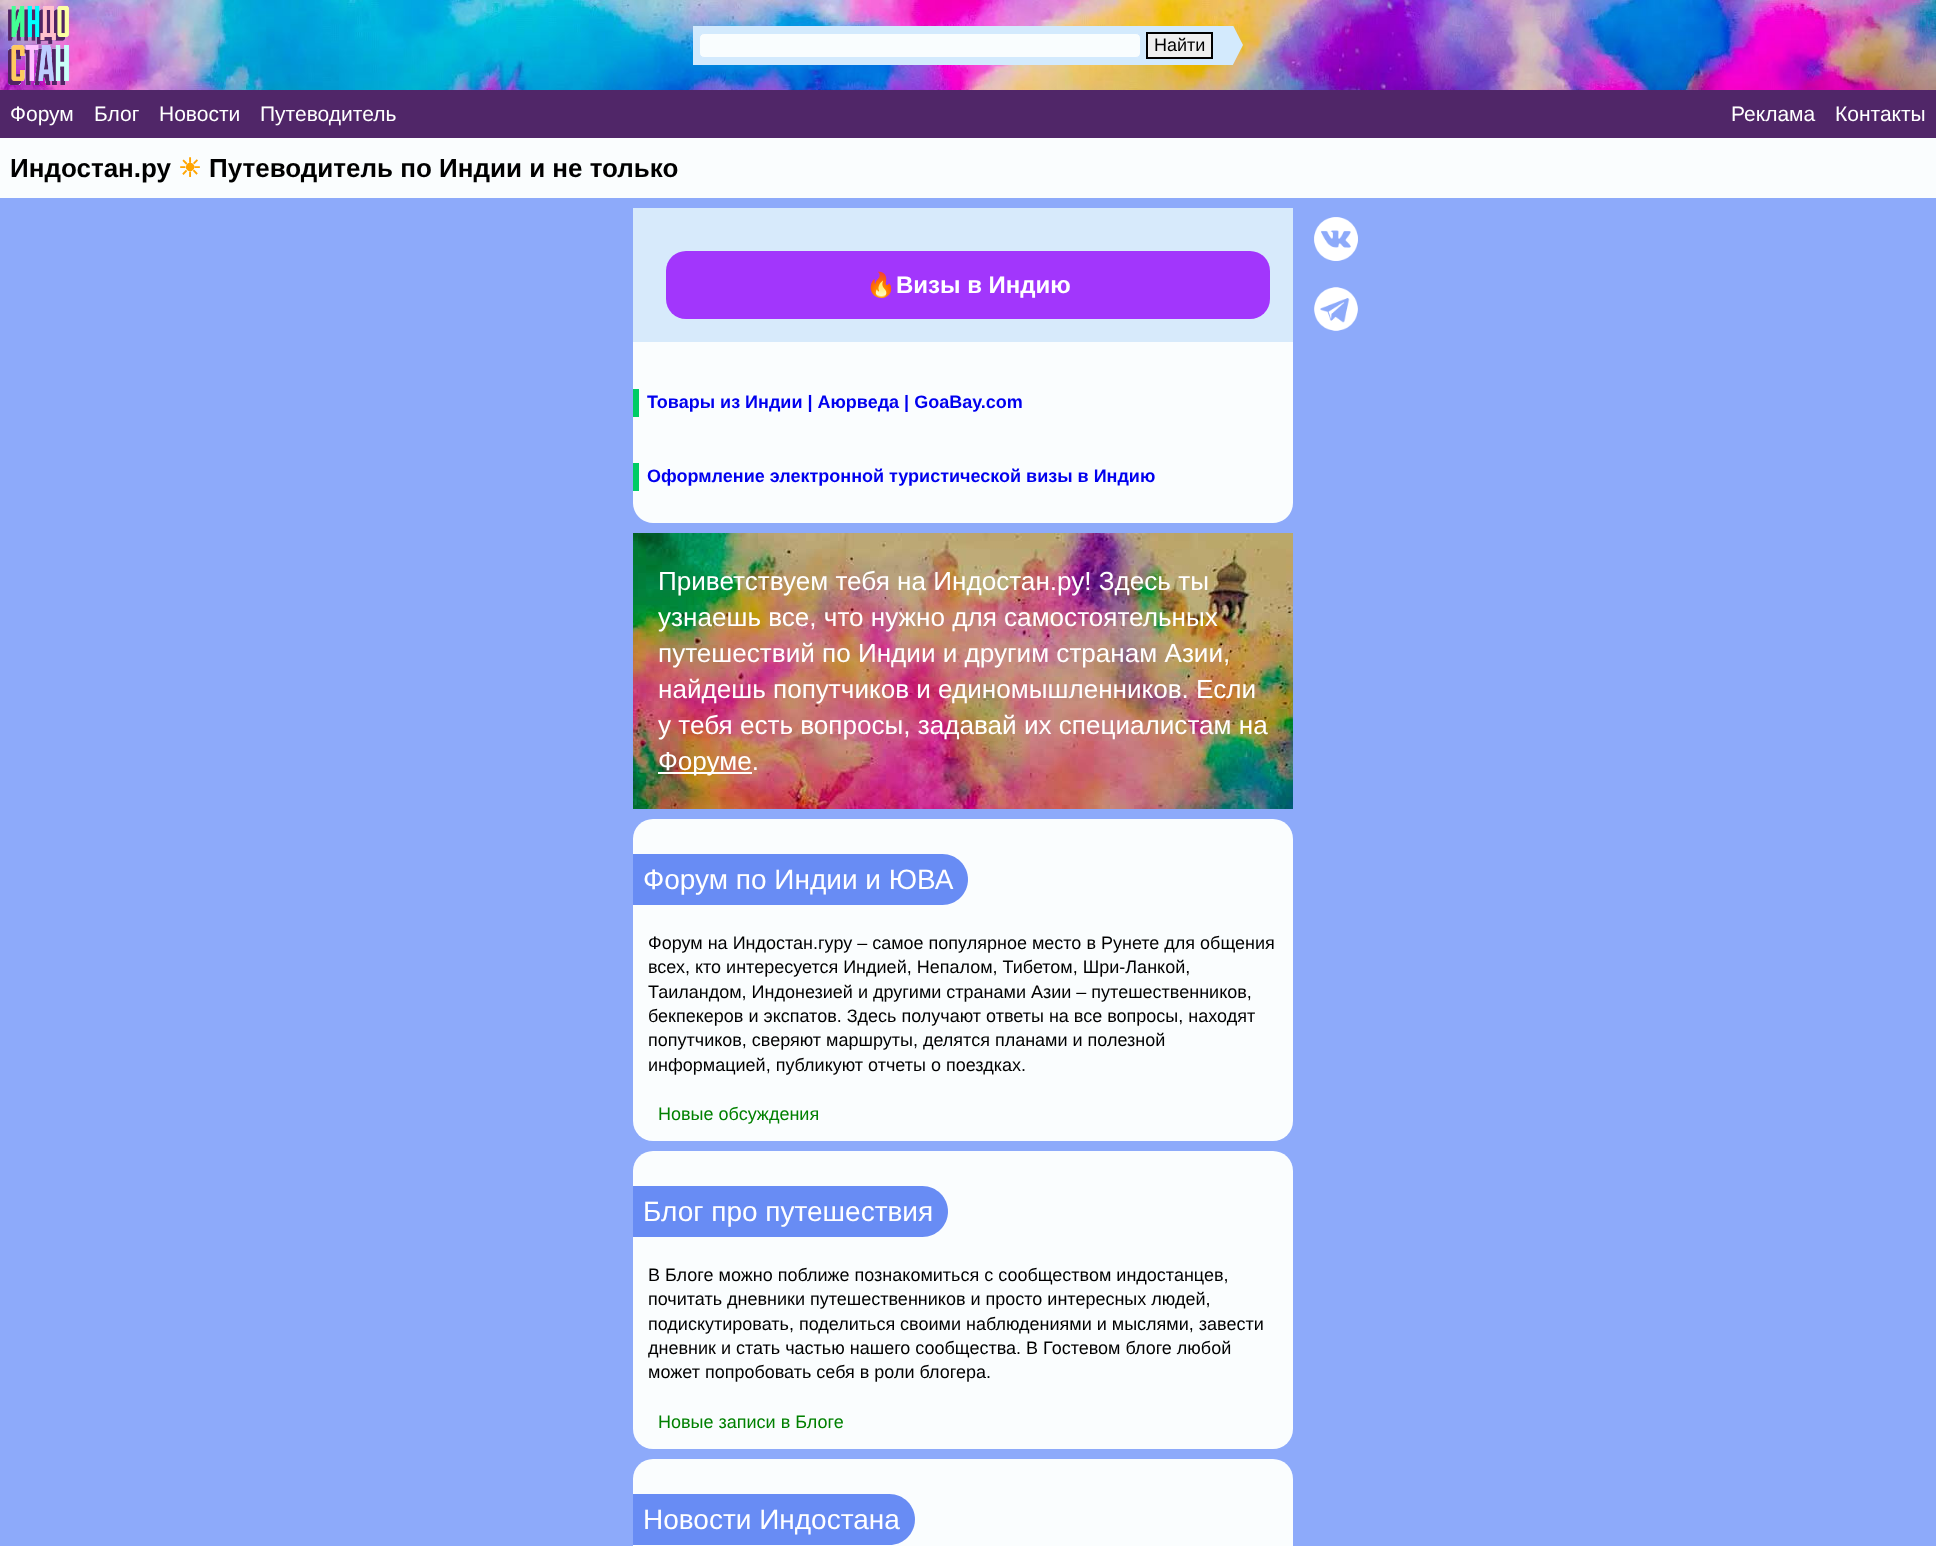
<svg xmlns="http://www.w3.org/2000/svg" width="1936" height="1546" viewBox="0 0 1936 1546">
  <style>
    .t1 { font: 18px Liberation Sans; fill: #000; }
    .t2 { font: 21px Liberation Sans; fill: #fff; }
    .t3 { font: bold 26px Liberation Sans; fill: #000; }
    .t4 { font: bold 26px DejaVu Sans; fill: #ffa500; }
    .t5 { font: bold 24px Noto Color Emoji; fill: #fff; }
    .t6 { font: bold 24px Liberation Sans; fill: #fff; }
    .t7 { font: bold 18px Liberation Sans; fill: #00e; }
    .t8 { font: 26.1px Liberation Sans; fill: #fff; }
    .t9 { font: 28px Liberation Sans; fill: #fff; }
    .t10 { font: 18px Liberation Sans; fill: #008000; }
  </style>
  <defs>
    <clipPath id="clip1"><rect x="1213" y="26" width="30" height="39"/></clipPath>
  </defs>
  <rect width="100%" height="100%" fill="#8daafa"/>
  <image x="0" y="0" width="1936" height="90" href="images/1.png"/>
  <image x="8" y="5" width="61" height="80" href="images/2.png"/>
  <rect x="693" y="26" width="520" height="39" fill="#d3eafd"/>
  <rect x="699.5" y="33.5" width="441" height="24" rx="4.5" fill="#f9fdfe" stroke="#d3eafd"/>
  <rect x="1147" y="33" width="65" height="25" fill="#efefef" stroke="#000" stroke-width="2"/>
  <text x="1154" y="51" class="t1">Найти</text>
  <g clip-path="url(#clip1)">
    <path d="M1213 104V-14L1243 45Z" fill="#d3eafd"/>
  </g>
  <rect x="0" y="90" width="1936" height="48" fill="#502668"/>
  <text x="10" y="121" class="t2">Форум</text>
  <text x="94" y="121" class="t2">Блог</text>
  <text x="159" y="121" class="t2">Новости</text>
  <text x="260" y="121" class="t2">Путеводитель</text>
  <text x="1731" y="121" class="t2">Реклaма</text>
  <text x="1835" y="121" class="t2">Контакты</text>
  <rect x="0" y="138" width="1936" height="60" fill="#fafdfe"/>
  <text x="10" y="177" class="t3">Индостан.ру</text>
  <text x="178" y="177" class="t4">☀</text>
  <text x="209" y="177" class="t3">Путеводитель по Индии и не только</text>
  <rect x="633" y="208" width="660" height="134" fill="#d7eafb"/>
  <rect x="666" y="251" width="604" height="68" rx="20" fill="#a236fc"/>
  <text x="866" y="293" class="t5">🔥</text>
  <text x="896" y="293" class="t6">Визы в Индию</text>
  <path d="M633 342H1293V503C1293 514 1284 523 1273 523H653C642 523 633 514 633 503Z" fill="#fafdfe"/>
  <rect x="633" y="389" width="6" height="28" fill="#0c6"/>
  <text x="647" y="408" class="t7">Товары из Индии | Аюрведа | GoaBay.com</text>
  <rect x="633" y="463" width="6" height="28" fill="#0c6"/>
  <text x="647" y="482" class="t7">Оформление электронной туристической визы в Индию</text>
  <image x="633" y="533" width="660" height="276" href="images/3.png"/>
  <text x="658" y="590" class="t8">Приветствуем тебя на Индостан.ру! Здесь ты</text>
  <text x="658" y="626" class="t8">узнаешь все, что нужно для самостоятельных</text>
  <text x="658" y="662" class="t8">путешествий по Индии и другим странам Азии,</text>
  <text x="658" y="698" class="t8">найдешь попутчиков и единомышленников. Если</text>
  <text x="658" y="734" class="t8">у тебя есть вопросы, задавай их специалистам на</text>
  <rect x="658" y="772" width="94" height="2" fill="#fff"/>
  <text x="658" y="770" class="t8">Форуме.</text>
  <rect x="633" y="819" width="660" height="322" rx="20" fill="#fafdfe"/>
  <path d="M633 854H942.5C956.5 854 968 865.5 968 879.5C968 893.5 956.5 905 942.5 905H633Z" fill="#688cf4"/>
  <text x="643" y="889" class="t9">Форум по Индии и ЮВА</text>
  <text x="648" y="949" class="t1">Форум на Индостан.гуру – самое популярное место в Рунете для общения</text>
  <text x="648" y="973" class="t1">всех, кто интересуется Индией, Непалом, Тибетом, Шри-Ланкой,</text>
  <text x="648" y="998" class="t1">Таиландом, Индонезией и другими странами Азии – путешественников,</text>
  <text x="648" y="1022" class="t1">бекпекеров и экспатов. Здесь получают ответы на все вопросы, находят</text>
  <text x="648" y="1046" class="t1">попутчиков, сверяют маршруты, делятся планами и полезной</text>
  <text x="648" y="1071" class="t1">информацией, публикуют отчеты о поездках.</text>
  <text x="658" y="1120" class="t10">Новые обсуждения</text>
  <rect x="633" y="1151" width="660" height="298" rx="20" fill="#fafdfe"/>
  <path d="M633 1186H922.5C936.5 1186 948 1197.5 948 1211.5C948 1225.5 936.5 1237 922.5 1237H633Z" fill="#688cf4"/>
  <text x="643" y="1221" class="t9">Блог про путешествия</text>
  <text x="648" y="1281" class="t1">В Блоге можно поближе познакомиться с сообществом индостанцев,</text>
  <text x="648" y="1305" class="t1">почитать дневники путешественников и просто интересных людей,</text>
  <text x="648" y="1330" class="t1">подискутировать, поделиться своими наблюдениями и мыслями, завести</text>
  <text x="648" y="1354" class="t1">дневник и стать частью нашего сообщества. В Гостевом блоге любой</text>
  <text x="648" y="1378" class="t1">может попробовать себя в роли блогера.</text>
  <text x="658" y="1428" class="t10">Новые записи в Блоге</text>
  <rect x="633" y="1459" width="660" height="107" rx="20" fill="#fafdfe"/>
  <path d="M633 1494H889.5C903.5 1494 915 1505.5 915 1519.5C915 1533.5 903.5 1545 889.5 1545H633Z" fill="#688cf4"/>
  <text x="643" y="1529" class="t9">Новости Индостана</text>
  <image x="1314" y="217" width="44" height="44" href="images/4.png"/>
  <image x="1314" y="287" width="44" height="44" href="images/5.png"/>
</svg>
